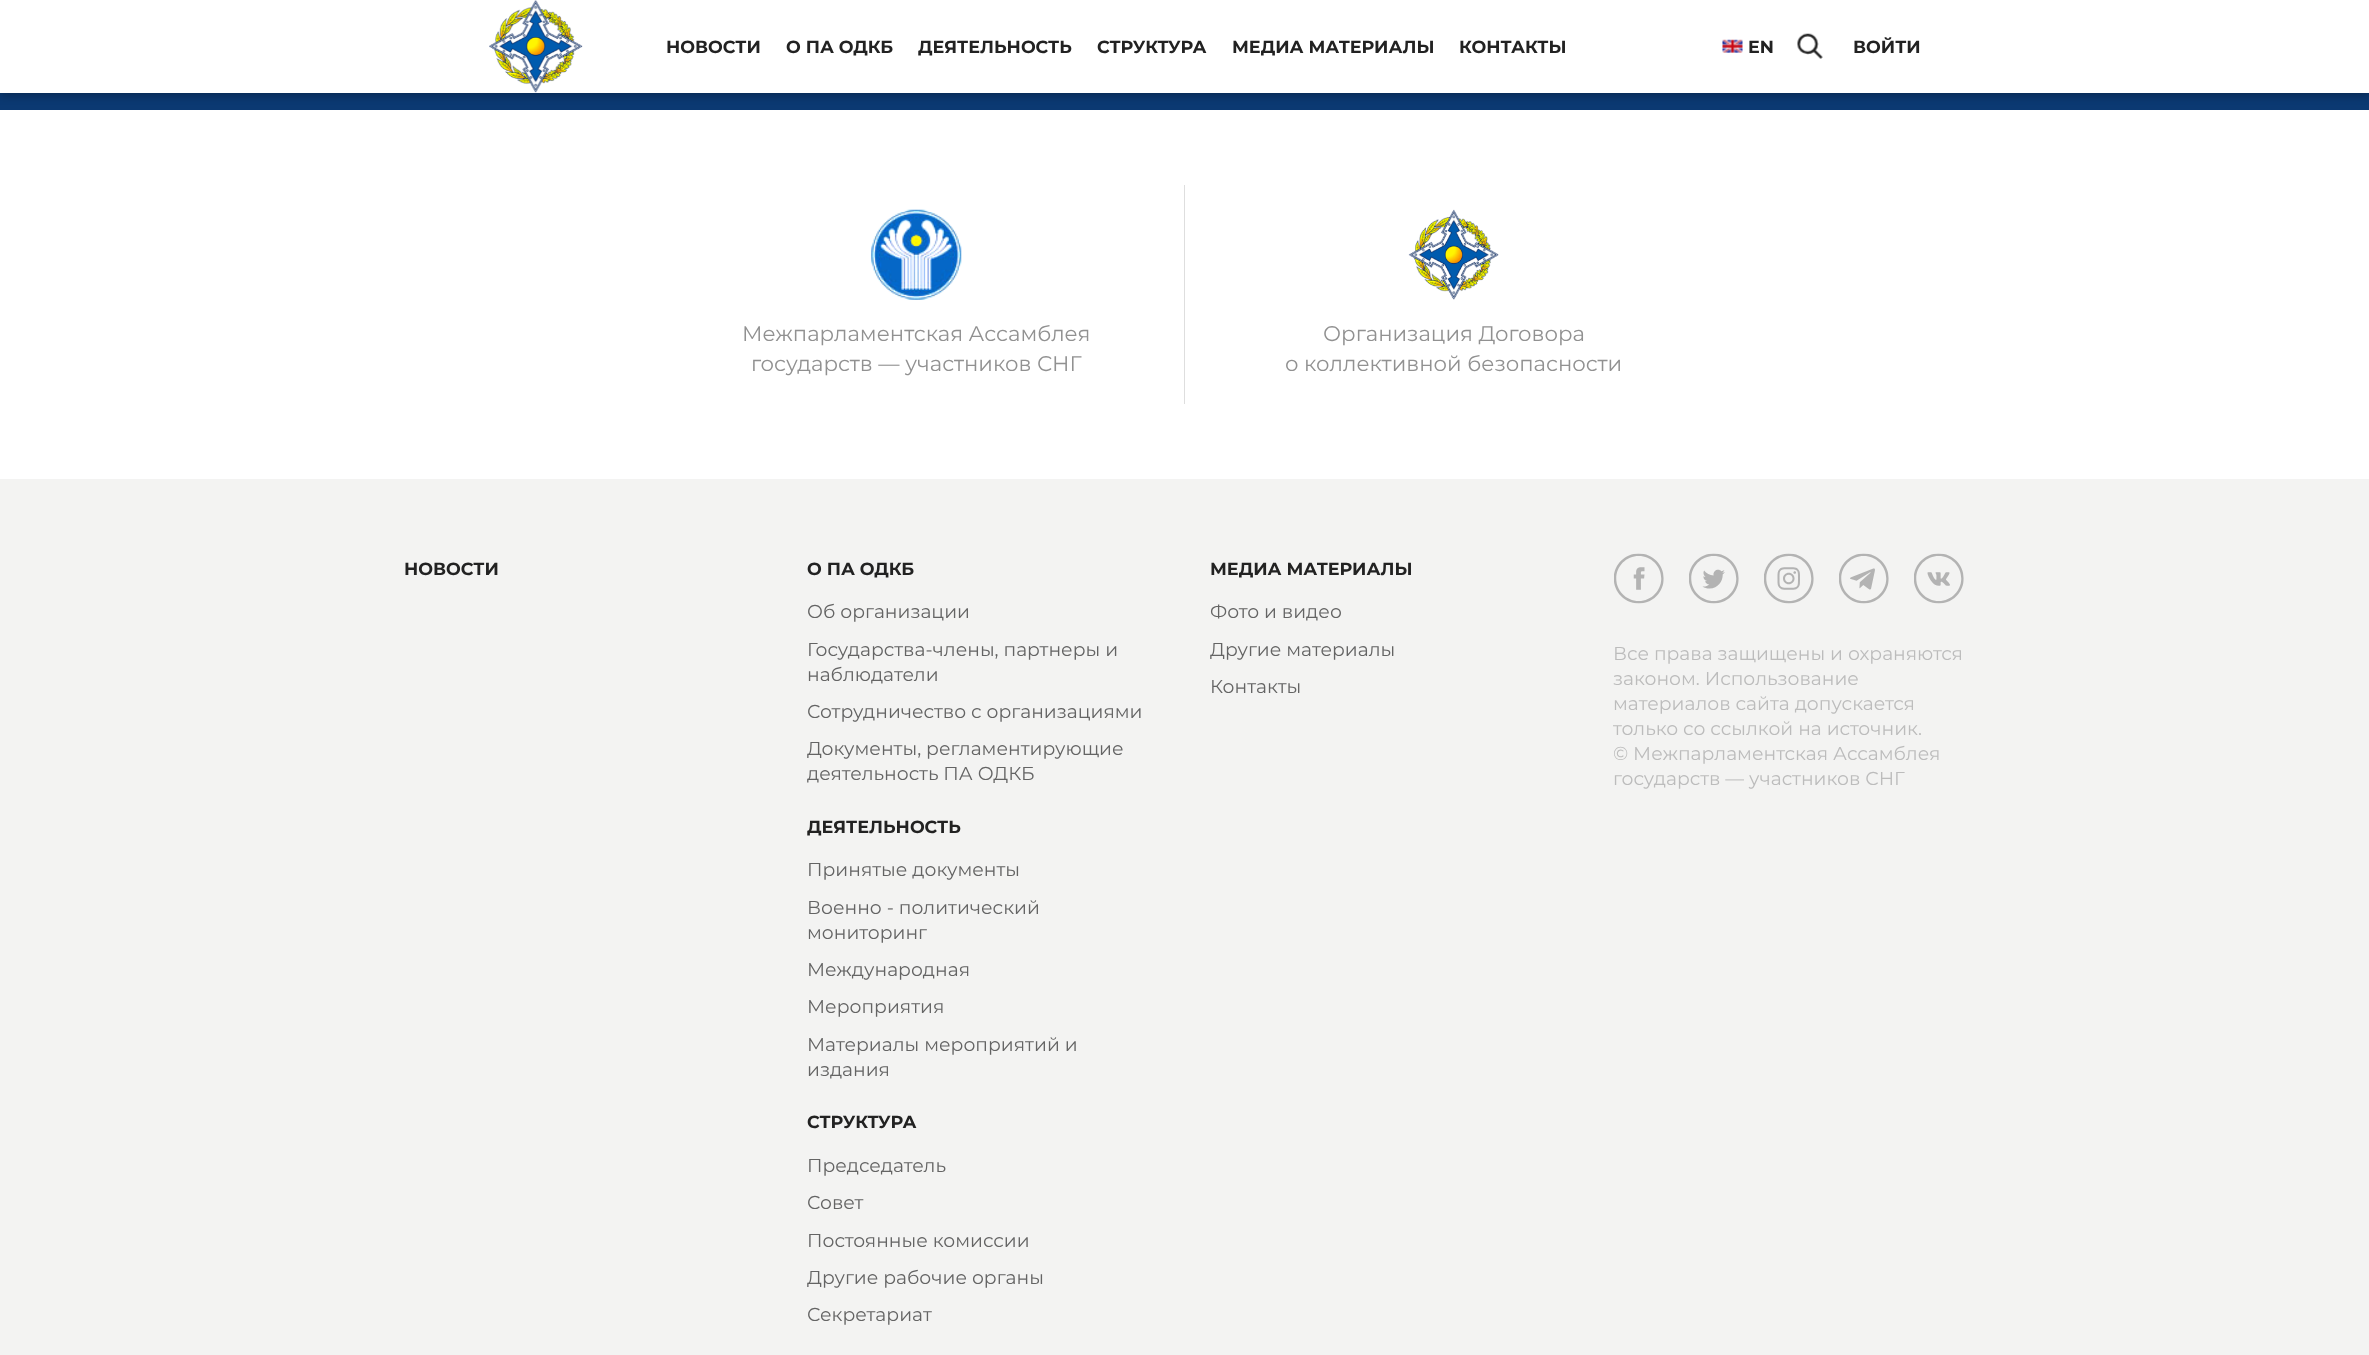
<svg xmlns="http://www.w3.org/2000/svg" width="2369" height="1355" viewBox="0 0 2369 1355">
  <style>
    .t1 { font: bold 17.5px Montserrat; fill: #222; }
    .t2 { font: 21.25px Montserrat; fill: #919191; }
    .t3 { font: 18.75px Montserrat; fill: #646464; }
    .t4 { font: 18.75px Montserrat; fill: #bcbcbc; }
  </style>
  <rect width="100%" height="100%" fill="#f3f3f2"/>
  <rect x="0" y="93" width="2369" height="17" fill="#0b3972"/>
  <rect x="0" y="110" width="2369" height="369" fill="#fff"/>
  <rect x="0" y="3" width="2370" height="92" fill="#0000004d" filter="blur(5px)"/>
  <rect x="0" y="0" width="2369" height="93" fill="#fff"/>
  <image x="489" y="0" width="94" height="93" href="images/1.png"/>
  <text x="666" y="53" class="t1">НОВОСТИ</text>
  <text x="786" y="53" class="t1">О ПА ОДКБ</text>
  <text x="918" y="53" class="t1">ДЕЯТЕЛЬНОСТЬ</text>
  <text x="1097" y="53" class="t1">СТРУКТУРА</text>
  <text x="1232" y="53" class="t1">МЕДИА МАТЕРИАЛЫ</text>
  <text x="1459" y="53" class="t1">КОНТАКТЫ</text>
  <image x="1722" y="39" width="21" height="14" href="images/2.png"/>
  <text x="1748" y="53" class="t1">EN</text>
  <image x="1797" y="33" width="26" height="26" href="images/3.png"/>
  <text x="1853" y="53" class="t1">ВОЙТИ</text>
  <image x="871" y="209" width="91" height="91" href="images/4.png"/>
  <text x="742" y="341" class="t2">Межпарламентская Ассамблея</text>
  <text x="751" y="371" class="t2">государств — участников СНГ</text>
  <rect x="1184" y="185" width="1" height="219" fill="#dedede"/>
  <image x="1408" y="209" width="91" height="91" href="images/5.png"/>
  <text x="1323" y="341" class="t2">Организация Договора</text>
  <text x="1285" y="371" class="t2">о коллективной безопасности</text>
  <text x="404" y="575" class="t1">НОВОСТИ</text>
  <text x="807" y="575" class="t1">О ПА ОДКБ</text>
  <text x="807" y="618" class="t3">Об организации</text>
  <text x="807" y="656" class="t3">Государства-члены, партнеры и</text>
  <text x="807" y="681" class="t3">наблюдатели</text>
  <text x="807" y="718" class="t3">Сотрудничество с организациями</text>
  <text x="807" y="755" class="t3">Документы, регламентирующие</text>
  <text x="807" y="780" class="t3">деятельность ПА ОДКБ</text>
  <text x="807" y="833" class="t1">ДЕЯТЕЛЬНОСТЬ</text>
  <text x="807" y="876" class="t3">Принятые документы</text>
  <text x="807" y="914" class="t3">Военно - политический</text>
  <text x="807" y="939" class="t3">мониторинг</text>
  <text x="807" y="976" class="t3">Международная</text>
  <text x="807" y="1013" class="t3">Мероприятия</text>
  <text x="807" y="1051" class="t3">Материалы мероприятий и</text>
  <text x="807" y="1076" class="t3">издания</text>
  <text x="807" y="1128" class="t1">СТРУКТУРА</text>
  <text x="807" y="1172" class="t3">Председатель</text>
  <text x="807" y="1209" class="t3">Совет</text>
  <text x="807" y="1247" class="t3">Постоянные комиссии</text>
  <text x="807" y="1284" class="t3">Другие рабочие органы</text>
  <text x="807" y="1321" class="t3">Секретариат</text>
  <text x="1210" y="575" class="t1">МЕДИА МАТЕРИАЛЫ</text>
  <text x="1210" y="618" class="t3">Фото и видео</text>
  <text x="1210" y="656" class="t3">Другие материалы</text>
  <text x="1210" y="693" class="t3">Контакты</text>
  <image x="1614" y="553" width="50" height="51" href="images/6.png"/>
  <image x="1689" y="553" width="50" height="51" href="images/7.png"/>
  <image x="1764" y="553" width="50" height="51" href="images/8.png"/>
  <image x="1839" y="553" width="50" height="51" href="images/9.png"/>
  <image x="1914" y="553" width="50" height="51" href="images/10.png"/>
  <text x="1613" y="660" class="t4">Все права защищены и охраняются</text>
  <text x="1613" y="685" class="t4">законом. Использование</text>
  <text x="1613" y="710" class="t4">материалов сайта допускается</text>
  <text x="1613" y="735" class="t4">только со ссылкой на источник.</text>
  <text x="1613" y="760" class="t4">© Межпарламентская Ассамблея</text>
  <text x="1613" y="785" class="t4">государств — участников СНГ</text>
</svg>
